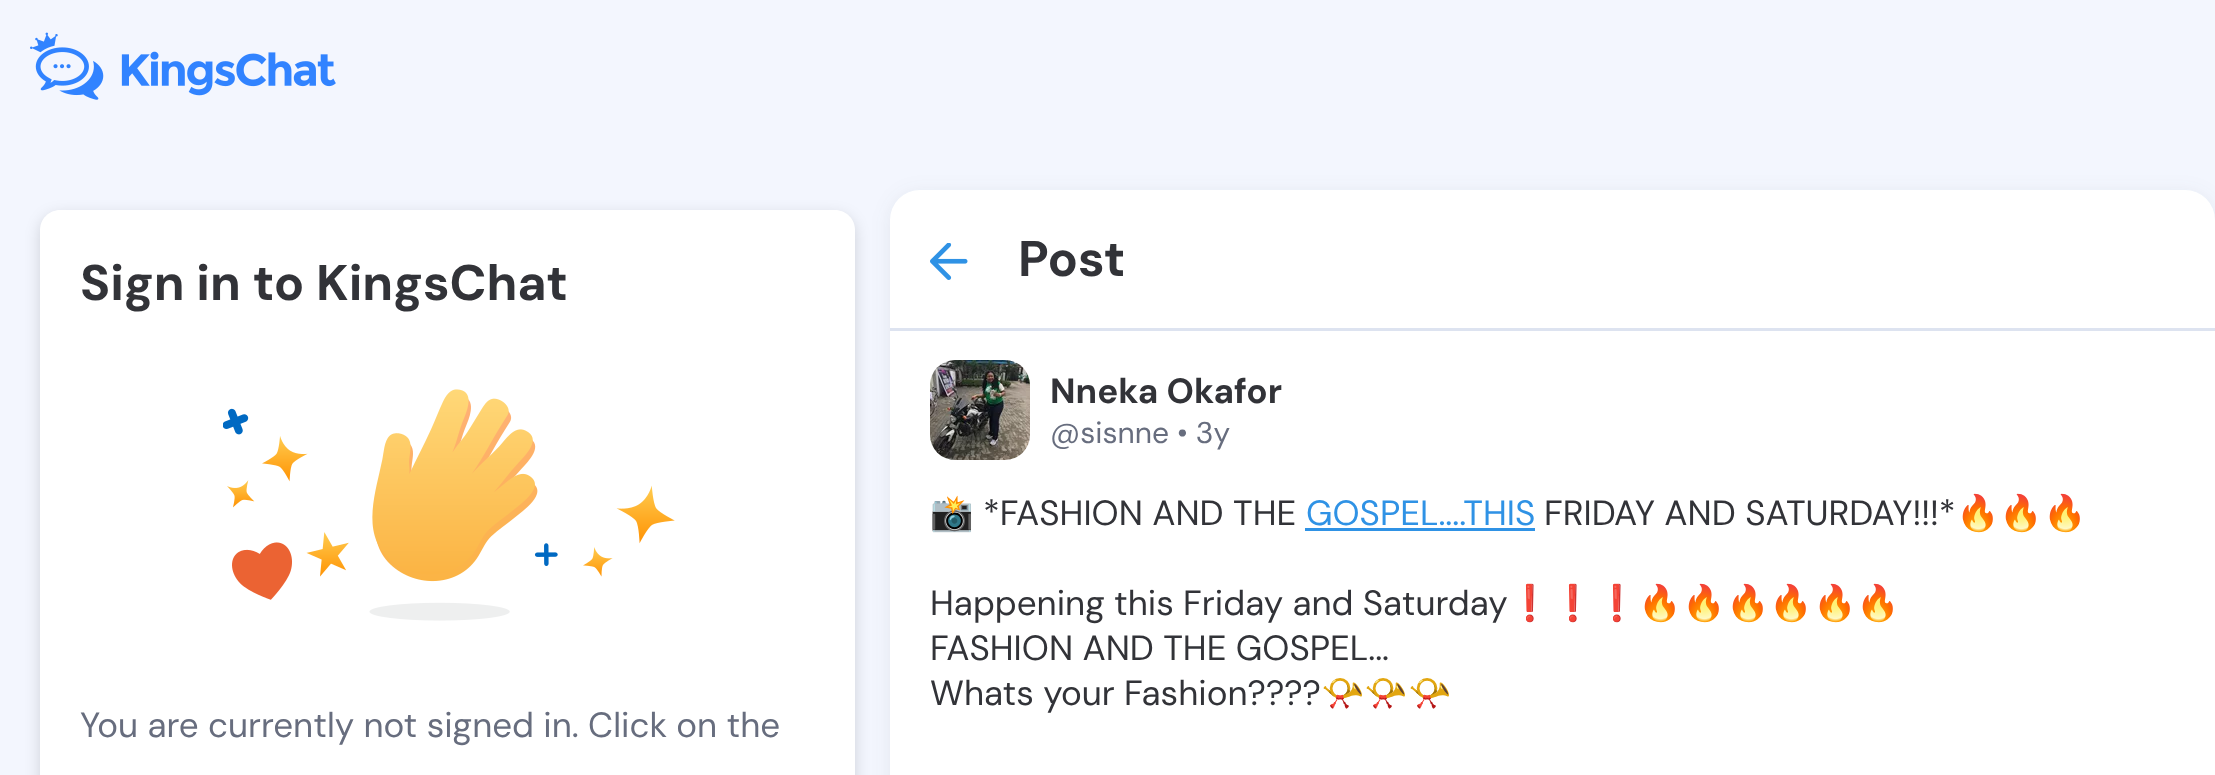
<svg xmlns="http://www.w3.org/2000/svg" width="2215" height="775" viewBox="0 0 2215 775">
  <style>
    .t1 { font: bold 50px DM Sans; fill: #323338; }
    .t2 { font: 35px DM Sans; fill: #676d7e; }
    .t3 { font: bold 35px DM Sans; fill: #323338; }
    .t4 { font: 30px DM Sans; fill: #676d7e; }
    .t5 { font: 35px Noto Color Emoji; fill: #323338; }
    .t6 { font: 35px DM Sans; fill: #323338; }
    .t7 { font: 35px DM Sans; fill: #2f92e5; }
  </style>
  <rect width="100%" height="100%" fill="#f3f6fe"/>
  <image x="30" y="32" width="306" height="68" href="images/1.png"/>
  <rect x="40" y="215" width="815" height="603" rx="20" fill="#00000026" filter="blur(7.5px)"/>
  <path d="M60 210H835C846 210 855 219 855 230V775H40V230C40 219 49 210 60 210Z" fill="#fff"/>
  <text x="80" y="300" class="t1">Sign in to KingsChat</text>
  <image x="223" y="389" width="452" height="232" href="images/2.png"/>
  <text x="80" y="737" class="t2">You are currently not signed in. Click on the</text>
  <rect x="890" y="193" width="1325" height="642" rx="30" fill="#393d4614" filter="blur(10px)"/>
  <rect x="890" y="190" width="1325" height="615" rx="30" fill="#fff"/>
  <rect x="890" y="328" width="1325" height="3" fill="#dde3f0"/>
  <image x="930" y="243" width="38" height="37" href="images/3.png"/>
  <text x="1018" y="276" class="t1">Post</text>
  <image x="930" y="360" width="100" height="100" href="images/4.png"/>
  <text x="1050" y="403" class="t3">Nneka Okafor</text>
  <text x="1050" y="443" class="t4">@sisnne • 3y</text>
  <text x="930" y="525" class="t5">📸</text>
  <text x="983" y="525" class="t6">*FASHION AND THE</text>
  <text x="1306" y="525" class="t7">GOSPEL....THIS</text>
  <rect x="1305" y="528" width="230" height="3" fill="#2f92e5"/>
  <text x="1544" y="525" class="t6">FRIDAY AND SATURDAY!!!*</text>
  <text x="1956" y="525" class="t5">🔥🔥🔥</text>
  <text x="930" y="615" class="t6">Happening this Friday and Saturday</text>
  <text x="1508" y="615" class="t5">❗❗❗🔥🔥🔥🔥🔥🔥</text>
  <text x="930" y="660" class="t6">FASHION AND THE GOSPEL...</text>
  <text x="930" y="705" class="t6">Whats your Fashion????</text>
  <text x="1321" y="705" class="t5">📯📯📯</text>
</svg>
